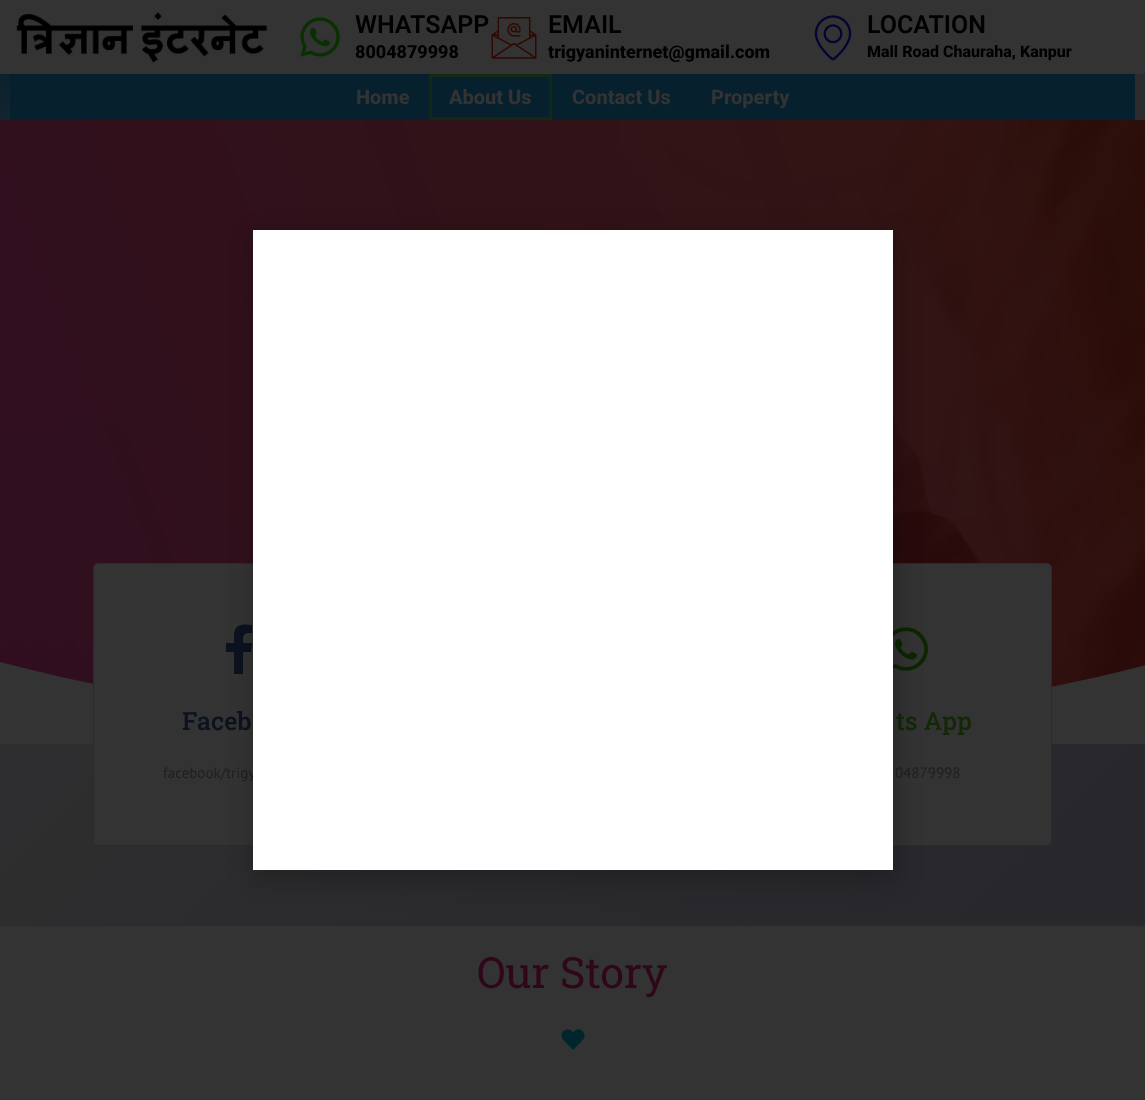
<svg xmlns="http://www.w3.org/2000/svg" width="1145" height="1100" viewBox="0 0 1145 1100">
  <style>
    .t1 { font: 600 25px Roboto; fill: #010101; }
    .t2 { font: 800 18px Roboto; fill: #010101; }
    .t3 { font: 800 16px Roboto; fill: #010101; }
    .t4 { font: 800 20px Roboto; fill: #333; }
    .t5 { font: 500 25px Roboto Slab; fill: #0c121e; }
    .t6 { font: 15px PT Sans; fill: #202020; }
    .t7 { font: 500 25px Roboto Slab; fill: #132808; }
    .t8 { font: 43px Roboto Slab; fill: #30071a; }
  </style>
  <defs>
    <linearGradient id="g1" gradientUnits="userSpaceOnUse" x1="-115" y1="115" x2="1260" y2="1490"><stop offset="0" stop-color="#011d2d"/><stop offset="0.12" stop-color="#303030"/><stop offset="1" stop-color="#24242b"/></linearGradient>
  </defs>
  <rect width="100%" height="100%" fill="#fff"/>
  <rect x="0" y="74" width="1145" height="852" fill="url(#g1)"/>
  <rect x="0" y="0" width="1145" height="74" fill="#333"/>
  <image x="16" y="12" width="252" height="51" href="images/1.png"/>
  <image x="300" y="17" width="40" height="40" href="images/2.png"/>
  <text x="355" y="33" class="t1">WHATSAPP</text>
  <text x="355" y="58" class="t2">8004879998</text>
  <image x="491" y="17" width="46" height="42" href="images/3.png"/>
  <text x="548" y="33" class="t1">EMAIL</text>
  <text x="548" y="58" class="t2">trigyaninternet@gmail.com</text>
  <image x="814" y="15" width="38" height="46" href="images/4.png"/>
  <text x="867" y="33" class="t1">LOCATION</text>
  <text x="867" y="57" class="t3">Mall Road Chauraha, Kanpur</text>
  <rect x="10" y="74" width="1125" height="46" fill="#06212d"/>
  <text x="356" y="104" class="t4">Home</text>
  <rect x="429" y="74" width="123" height="3" fill="#132916"/>
  <rect x="429" y="74" width="3" height="46" fill="#132916"/>
  <rect x="549" y="74" width="3" height="46" fill="#132916"/>
  <rect x="429" y="117" width="123" height="3" fill="#132916"/>
  <text x="449" y="104" class="t4">About Us</text>
  <text x="572" y="104" class="t4">Contact Us</text>
  <text x="711" y="104" class="t4">Property</text>
  <image x="0" y="120" width="1145" height="567" href="images/5.png"/>
  <path d="M573 730C-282 727-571 367-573 274V744H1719V279C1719 365 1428 734 573 730Z" fill="#333"/>
  <rect x="93.5" y="563.5" width="292" height="282" rx="4.5" fill="#333" stroke="#2b2b2b"/>
  <path d="M251 652H243V674H234V652H226V643H234V634C235 623 245 624 252 625V633C243 633 243 634 243 643H252Z" fill="#0c121e"/>
  <text x="182" y="730" class="t5">Faceb</text>
  <text x="163" y="778" class="t6">facebook/trigy</text>
  <rect x="759.5" y="563.5" width="292" height="282" rx="4.5" fill="#333" stroke="#2b2b2b"/>
  <image x="893" y="627" width="35" height="44" href="images/6.png"/>
  <text x="896" y="730" class="t7">ts App</text>
  <text x="895" y="778" class="t6">04879998</text>
  <rect x="0" y="926" width="1145" height="174" fill="#333"/>
  <text x="477" y="988" class="t8">Our Story</text>
  <image x="561" y="1029" width="24" height="21" href="images/7.png"/>
  <rect x="252" y="235" width="646" height="646" fill="#00000033" filter="blur(11.5px)"/>
  <rect x="253" y="230" width="640" height="640" fill="#fff"/>
</svg>
